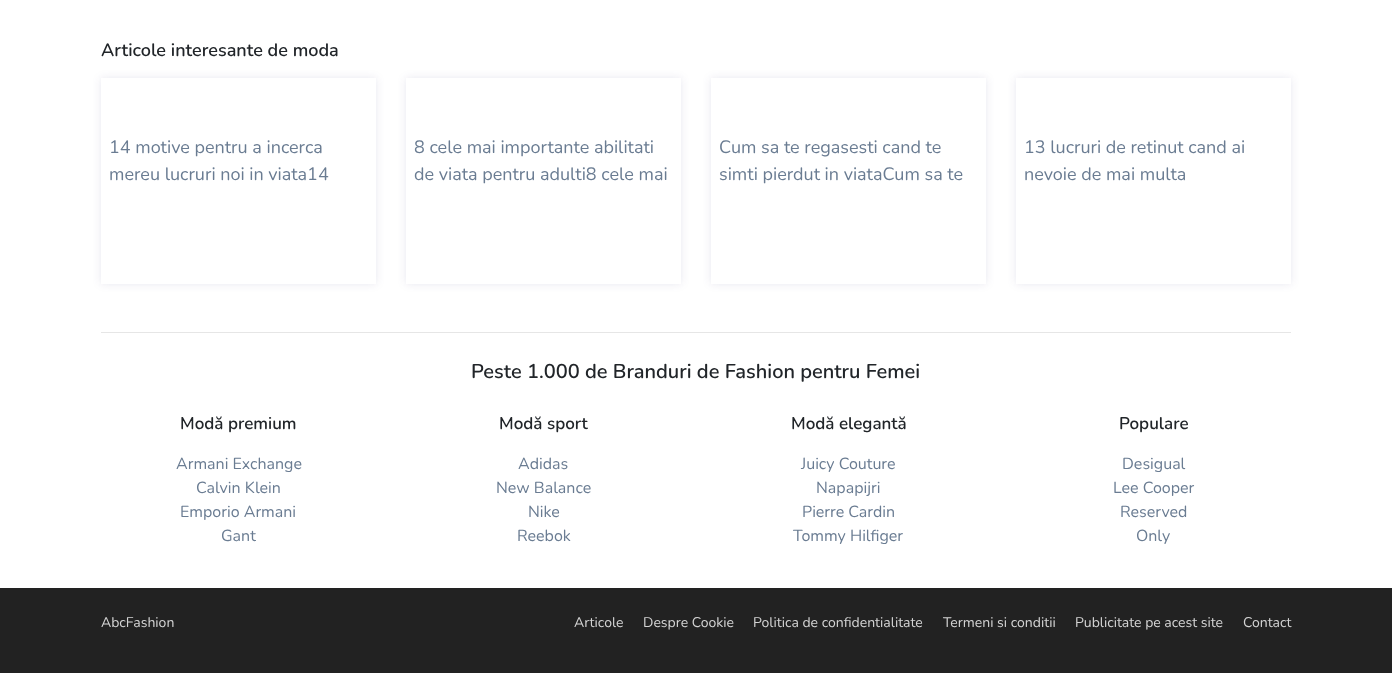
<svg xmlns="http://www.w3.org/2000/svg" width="1392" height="697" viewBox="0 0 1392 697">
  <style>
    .t1 { font: 600 18px Nunito; fill: #212529; }
    .t2 { font: 18px Nunito; fill: #6a7c92; }
    .t3 { font: 600 20px Nunito; fill: #212529; }
    .t4 { font: 600 17px Nunito; fill: #212529; }
    .t5 { font: 16px Nunito; fill: #6a7c92; }
    .t6 { font: 14px Nunito; fill: #d4d4d4; }
  </style>
  <defs>
    <clipPath id="clip1"><path d="M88 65H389V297H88ZM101 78H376V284H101Z" clip-rule="evenodd"/></clipPath>
    <clipPath id="clip2"><path d="M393 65H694V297H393ZM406 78H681V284H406Z" clip-rule="evenodd"/></clipPath>
    <clipPath id="clip3"><path d="M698 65H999V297H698ZM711 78H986V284H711Z" clip-rule="evenodd"/></clipPath>
    <clipPath id="clip4"><path d="M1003 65H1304V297H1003ZM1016 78H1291V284H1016Z" clip-rule="evenodd"/></clipPath>
  </defs>
  <rect width="100%" height="100%" fill="#fff"/>
  <text x="101" y="56" class="t1">Articole interesante de moda</text>
  <g clip-path="url(#clip1)">
    <rect x="101" y="78" width="275" height="206" fill="#1e16661a" filter="blur(4px)"/>
  </g>
  <text x="109" y="153" class="t2">14 motive pentru a incerca</text>
  <text x="109" y="180" class="t2">mereu lucruri noi in viata14</text>
  <g clip-path="url(#clip2)">
    <rect x="406" y="78" width="275" height="206" fill="#1e16661a" filter="blur(4px)"/>
  </g>
  <text x="414" y="153" class="t2">8 cele mai importante abilitati</text>
  <text x="414" y="180" class="t2">de viata pentru adulti8 cele mai</text>
  <g clip-path="url(#clip3)">
    <rect x="711" y="78" width="275" height="206" fill="#1e16661a" filter="blur(4px)"/>
  </g>
  <text x="719" y="153" class="t2">Cum sa te regasesti cand te</text>
  <text x="719" y="180" class="t2">simti pierdut in viataCum sa te</text>
  <g clip-path="url(#clip4)">
    <rect x="1016" y="78" width="275" height="206" fill="#1e16661a" filter="blur(4px)"/>
  </g>
  <text x="1024" y="153" class="t2">13 lucruri de retinut cand ai</text>
  <text x="1024" y="180" class="t2">nevoie de mai multa</text>
  <rect x="101" y="332" width="1190" height="1" fill="#e6e6e6"/>
  <text x="471" y="378" class="t3">Peste 1.000 de Branduri de Fashion pentru Femei</text>
  <text x="180" y="429" class="t4">Modă premium</text>
  <text x="176" y="469" class="t5">Armani Exchange</text>
  <text x="196" y="493" class="t5">Calvin Klein</text>
  <text x="180" y="517" class="t5">Emporio Armani</text>
  <text x="221" y="541" class="t5">Gant</text>
  <text x="499" y="429" class="t4">Modă sport</text>
  <text x="518" y="469" class="t5">Adidas</text>
  <text x="496" y="493" class="t5">New Balance</text>
  <text x="528" y="517" class="t5">Nike</text>
  <text x="517" y="541" class="t5">Reebok</text>
  <text x="791" y="429" class="t4">Modă elegantă</text>
  <text x="801" y="469" class="t5">Juicy Couture</text>
  <text x="816" y="493" class="t5">Napapijri</text>
  <text x="802" y="517" class="t5">Pierre Cardin</text>
  <text x="793" y="541" class="t5">Tommy Hilfiger</text>
  <text x="1119" y="429" class="t4">Populare</text>
  <text x="1122" y="469" class="t5">Desigual</text>
  <text x="1113" y="493" class="t5">Lee Cooper</text>
  <text x="1120" y="517" class="t5">Reserved</text>
  <text x="1136" y="541" class="t5">Only</text>
  <rect x="0" y="588" width="1392" height="85" fill="#222"/>
  <text x="101" y="627" class="t6">AbcFashion</text>
  <text x="574" y="627" class="t6">Articole</text>
  <text x="643" y="627" class="t6">Despre Cookie</text>
  <text x="753" y="627" class="t6">Politica de confidentialitate</text>
  <text x="943" y="627" class="t6">Termeni si conditii</text>
  <text x="1075" y="627" class="t6">Publicitate pe acest site</text>
  <text x="1243" y="627" class="t6">Contact</text>
</svg>
